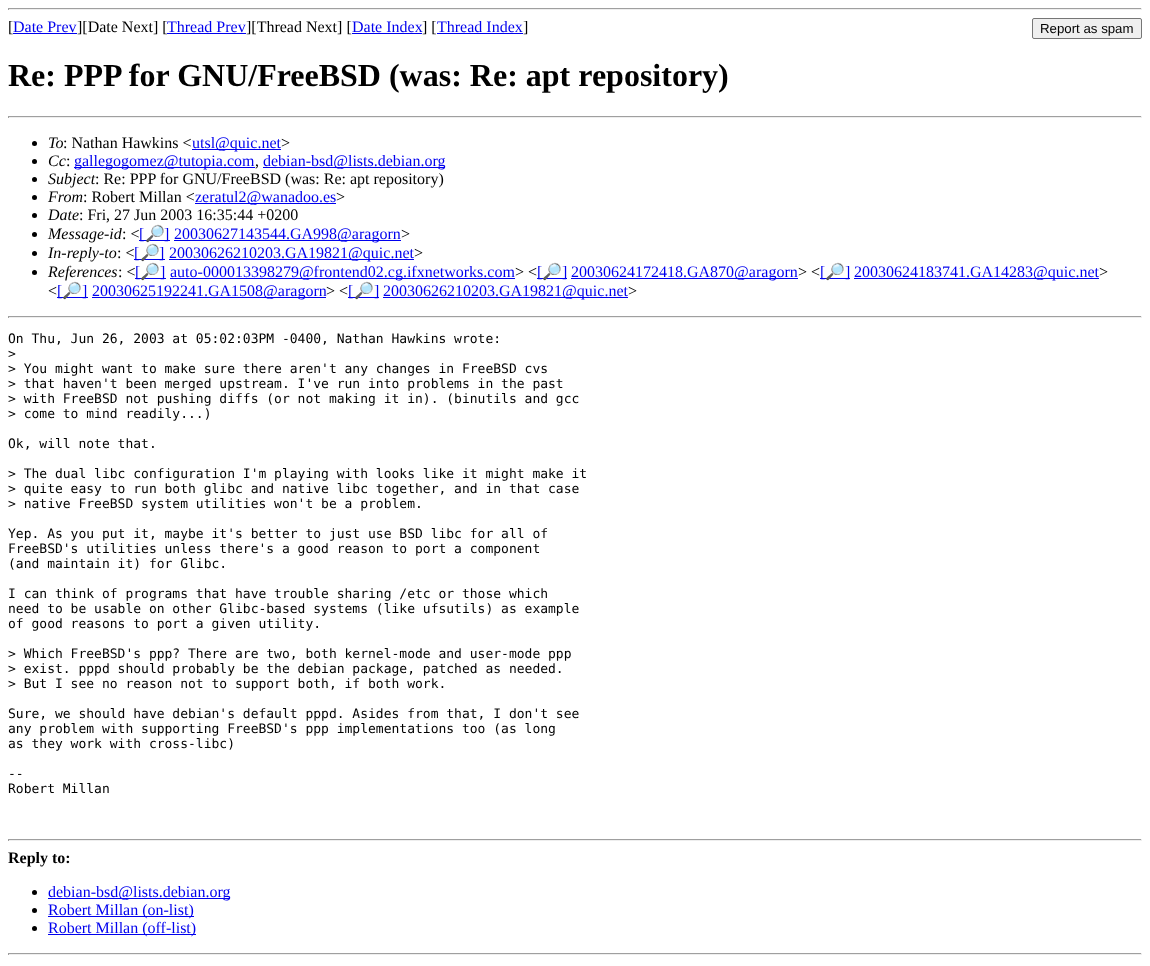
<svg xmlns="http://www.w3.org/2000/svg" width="1150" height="966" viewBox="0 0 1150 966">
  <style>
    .t1 { font: 16px Liberation Serif; fill: #000; }
    .t2 { font: 16px Liberation Serif; fill: #00e; }
    .t3 { font: 13.25px Liberation Sans; fill: #000; }
    .t4 { font: bold 32px Liberation Serif; fill: #000; }
    .t5 { font: italic 16px Liberation Serif; fill: #000; }
    .t6 { font: 16px Noto Color Emoji; fill: #00e; }
    .t7 { font: 13px DejaVu Sans Mono; fill: #000; }
    .t8 { font: bold 16px Liberation Serif; fill: #000; }
  </style>
  <rect width="100%" height="100%" fill="#fff"/>
  <rect x="8" y="8" width="1134" height="1" fill="#9f9f9f"/>
  <rect x="1141" y="8" width="1" height="2" fill="#eee"/>
  <rect x="8" y="9" width="1134" height="1" fill="#eee"/>
  <rect x="8" y="8" width="1" height="2" fill="#9f9f9f"/>
  <text x="8" y="32" class="t1">[</text>
  <text x="13" y="32" class="t2">Date Prev</text>
  <rect x="13" y="33" width="64" height="1" fill="#00e"/>
  <text x="77" y="32" class="t1">][Date Next] [</text>
  <text x="167" y="32" class="t2">Thread Prev</text>
  <rect x="167" y="33" width="79" height="1" fill="#00e"/>
  <text x="246" y="32" class="t1">][Thread Next] [</text>
  <text x="352" y="32" class="t2">Date Index</text>
  <rect x="352" y="33" width="70" height="1" fill="#00e"/>
  <text x="422" y="32" class="t1">] [</text>
  <text x="437" y="32" class="t2">Thread Index</text>
  <rect x="437" y="33" width="86" height="1" fill="#00e"/>
  <text x="523" y="32" class="t1">]</text>
  <rect x="1032.5" y="18.5" width="109" height="20" rx="1.5" fill="#efefef" stroke="#767676"/>
  <text x="1040" y="33" class="t3">Report as spam</text>
  <text x="8" y="86" class="t4">Re: PPP for GNU/FreeBSD (was: Re: apt repository)</text>
  <rect x="8" y="116" width="1134" height="1" fill="#9f9f9f"/>
  <rect x="1141" y="116" width="1" height="2" fill="#eee"/>
  <rect x="8" y="117" width="1134" height="1" fill="#eee"/>
  <rect x="8" y="116" width="1" height="2" fill="#9f9f9f"/>
  <circle cx="34.5" cy="143.5" r="2.5" fill="#000"/>
  <text x="48" y="148" class="t5">To</text>
  <text x="63" y="148" class="t1">: Nathan Hawkins &lt;</text>
  <rect x="192" y="149" width="89" height="1" fill="#00e"/>
  <text x="192" y="148" class="t2">utsl@quic.net</text>
  <text x="281" y="148" class="t1">&gt;</text>
  <circle cx="34.5" cy="161.5" r="2.5" fill="#000"/>
  <text x="48" y="166" class="t5">Cc</text>
  <text x="66" y="166" class="t1">:</text>
  <rect x="74" y="167" width="181" height="1" fill="#00e"/>
  <text x="74" y="166" class="t2">gallegogomez@tutopia.com</text>
  <rect x="263" y="167" width="182" height="1" fill="#00e"/>
  <text x="263" y="166" class="t2">debian-bsd@lists.debian.org</text>
  <text x="255" y="166" class="t1">,</text>
  <circle cx="34.5" cy="179.5" r="2.5" fill="#000"/>
  <text x="48" y="184" class="t5">Subject</text>
  <text x="95" y="184" class="t1">: Re: PPP for GNU/FreeBSD (was: Re: apt repository)</text>
  <circle cx="34.5" cy="197.5" r="2.5" fill="#000"/>
  <text x="48" y="202" class="t5">From</text>
  <text x="83" y="202" class="t1">: Robert Millan &lt;</text>
  <rect x="195" y="203" width="141" height="1" fill="#00e"/>
  <text x="195" y="202" class="t2">zeratul2@wanadoo.es</text>
  <text x="336" y="202" class="t1">&gt;</text>
  <circle cx="34.5" cy="215.5" r="2.5" fill="#000"/>
  <text x="48" y="220" class="t5">Date</text>
  <text x="79" y="220" class="t1">: Fri, 27 Jun 2003 16:35:44 +0200</text>
  <circle cx="34.5" cy="234.5" r="2.5" fill="#000"/>
  <text x="48" y="239" class="t5">Message-id</text>
  <text x="122" y="239" class="t1">: &lt;</text>
  <rect x="139" y="240" width="31" height="1" fill="#00e"/>
  <text x="139" y="239" class="t2">[</text>
  <text x="145" y="239" class="t6">🔎</text>
  <text x="164" y="239" class="t2">]</text>
  <rect x="174" y="240" width="227" height="1" fill="#00e"/>
  <text x="174" y="239" class="t2">20030627143544.GA998@aragorn</text>
  <text x="401" y="239" class="t1">&gt;</text>
  <circle cx="34.5" cy="253.5" r="2.5" fill="#000"/>
  <text x="48" y="258" class="t5">In-reply-to</text>
  <text x="117" y="258" class="t1">: &lt;</text>
  <rect x="134" y="259" width="31" height="1" fill="#00e"/>
  <text x="134" y="258" class="t2">[</text>
  <text x="140" y="258" class="t6">🔎</text>
  <text x="159" y="258" class="t2">]</text>
  <rect x="169" y="259" width="245" height="1" fill="#00e"/>
  <text x="169" y="258" class="t2">20030626210203.GA19821@quic.net</text>
  <text x="414" y="258" class="t1">&gt;</text>
  <circle cx="34.5" cy="272.5" r="2.5" fill="#000"/>
  <text x="48" y="277" class="t5">References</text>
  <text x="118" y="277" class="t1">: &lt;</text>
  <rect x="135" y="278" width="31" height="1" fill="#00e"/>
  <text x="135" y="277" class="t2">[</text>
  <text x="140" y="277" class="t6">🔎</text>
  <text x="160" y="277" class="t2">]</text>
  <rect x="170" y="278" width="345" height="1" fill="#00e"/>
  <text x="170" y="277" class="t2">auto-000013398279@frontend02.cg.ifxnetworks.com</text>
  <text x="515" y="277" class="t1">&gt; &lt;</text>
  <rect x="537" y="278" width="30" height="1" fill="#00e"/>
  <text x="537" y="277" class="t2">[</text>
  <text x="542" y="277" class="t6">🔎</text>
  <text x="562" y="277" class="t2">]</text>
  <rect x="571" y="278" width="227" height="1" fill="#00e"/>
  <text x="571" y="277" class="t2">20030624172418.GA870@aragorn</text>
  <text x="798" y="277" class="t1">&gt; &lt;</text>
  <rect x="820" y="278" width="30" height="1" fill="#00e"/>
  <text x="820" y="277" class="t2">[</text>
  <text x="825" y="277" class="t6">🔎</text>
  <text x="845" y="277" class="t2">]</text>
  <rect x="854" y="278" width="245" height="1" fill="#00e"/>
  <text x="854" y="277" class="t2">20030624183741.GA14283@quic.net</text>
  <text x="1099" y="277" class="t1">&gt;</text>
  <text x="48" y="296" class="t1">&lt;</text>
  <rect x="57" y="297" width="31" height="1" fill="#00e"/>
  <text x="57" y="296" class="t2">[</text>
  <text x="62" y="296" class="t6">🔎</text>
  <text x="82" y="296" class="t2">]</text>
  <rect x="92" y="297" width="234" height="1" fill="#00e"/>
  <text x="92" y="296" class="t2">20030625192241.GA1508@aragorn</text>
  <text x="326" y="296" class="t1">&gt; &lt;</text>
  <rect x="348" y="297" width="31" height="1" fill="#00e"/>
  <text x="348" y="296" class="t2">[</text>
  <text x="354" y="296" class="t6">🔎</text>
  <text x="374" y="296" class="t2">]</text>
  <rect x="383" y="297" width="245" height="1" fill="#00e"/>
  <text x="383" y="296" class="t2">20030626210203.GA19821@quic.net</text>
  <text x="628" y="296" class="t1">&gt;</text>
  <rect x="8" y="316" width="1134" height="1" fill="#9f9f9f"/>
  <rect x="1141" y="316" width="1" height="2" fill="#eee"/>
  <rect x="8" y="317" width="1134" height="1" fill="#eee"/>
  <rect x="8" y="316" width="1" height="2" fill="#9f9f9f"/>
  <text x="8" y="343" class="t7">On Thu, Jun 26, 2003 at 05:02:03PM -0400, Nathan Hawkins wrote:</text>
  <text x="8" y="358" class="t7">&gt;</text>
  <text x="8" y="373" class="t7">&gt; You might want to make sure there aren't any changes in FreeBSD cvs</text>
  <text x="8" y="388" class="t7">&gt; that haven't been merged upstream. I've run into problems in the past</text>
  <text x="8" y="403" class="t7">&gt; with FreeBSD not pushing diffs (or not making it in). (binutils and gcc</text>
  <text x="8" y="418" class="t7">&gt; come to mind readily...)</text>
  <text x="8" y="448" class="t7">Ok, will note that.</text>
  <text x="8" y="478" class="t7">&gt; The dual libc configuration I'm playing with looks like it might make it</text>
  <text x="8" y="493" class="t7">&gt; quite easy to run both glibc and native libc together, and in that case</text>
  <text x="8" y="508" class="t7">&gt; native FreeBSD system utilities won't be a problem.</text>
  <text x="8" y="538" class="t7">Yep. As you put it, maybe it's better to just use BSD libc for all of</text>
  <text x="8" y="553" class="t7">FreeBSD's utilities unless there's a good reason to port a component</text>
  <text x="8" y="568" class="t7">(and maintain it) for Glibc.</text>
  <text x="8" y="598" class="t7">I can think of programs that have trouble sharing /etc or those which</text>
  <text x="8" y="613" class="t7">need to be usable on other Glibc-based systems (like ufsutils) as example</text>
  <text x="8" y="628" class="t7">of good reasons to port a given utility.</text>
  <text x="8" y="658" class="t7">&gt; Which FreeBSD's ppp? There are two, both kernel-mode and user-mode ppp</text>
  <text x="8" y="673" class="t7">&gt; exist. pppd should probably be the debian package, patched as needed.</text>
  <text x="8" y="688" class="t7">&gt; But I see no reason not to support both, if both work.</text>
  <text x="8" y="718" class="t7">Sure, we should have debian's default pppd. Asides from that, I don't see</text>
  <text x="8" y="733" class="t7">any problem with supporting FreeBSD's ppp implementations too (as long</text>
  <text x="8" y="748" class="t7">as they work with cross-libc)</text>
  <text x="8" y="778" class="t7">--</text>
  <text x="8" y="793" class="t7">Robert Millan</text>
  <rect x="8" y="839" width="1134" height="1" fill="#9f9f9f"/>
  <rect x="1141" y="839" width="1" height="2" fill="#eee"/>
  <rect x="8" y="840" width="1134" height="1" fill="#eee"/>
  <rect x="8" y="839" width="1" height="2" fill="#9f9f9f"/>
  <text x="8" y="863" class="t8">Reply to:</text>
  <circle cx="34.5" cy="892.5" r="2.5" fill="#000"/>
  <rect x="48" y="898" width="182" height="1" fill="#00e"/>
  <text x="48" y="897" class="t2">debian-bsd@lists.debian.org</text>
  <circle cx="34.5" cy="910.5" r="2.5" fill="#000"/>
  <rect x="48" y="916" width="146" height="1" fill="#00e"/>
  <text x="48" y="915" class="t2">Robert Millan (on-list)</text>
  <circle cx="34.5" cy="928.5" r="2.5" fill="#000"/>
  <rect x="48" y="934" width="148" height="1" fill="#00e"/>
  <text x="48" y="933" class="t2">Robert Millan (off-list)</text>
  <rect x="8" y="953" width="1134" height="1" fill="#9f9f9f"/>
  <rect x="1141" y="953" width="1" height="2" fill="#eee"/>
  <rect x="8" y="954" width="1134" height="1" fill="#eee"/>
  <rect x="8" y="953" width="1" height="2" fill="#9f9f9f"/>
</svg>
